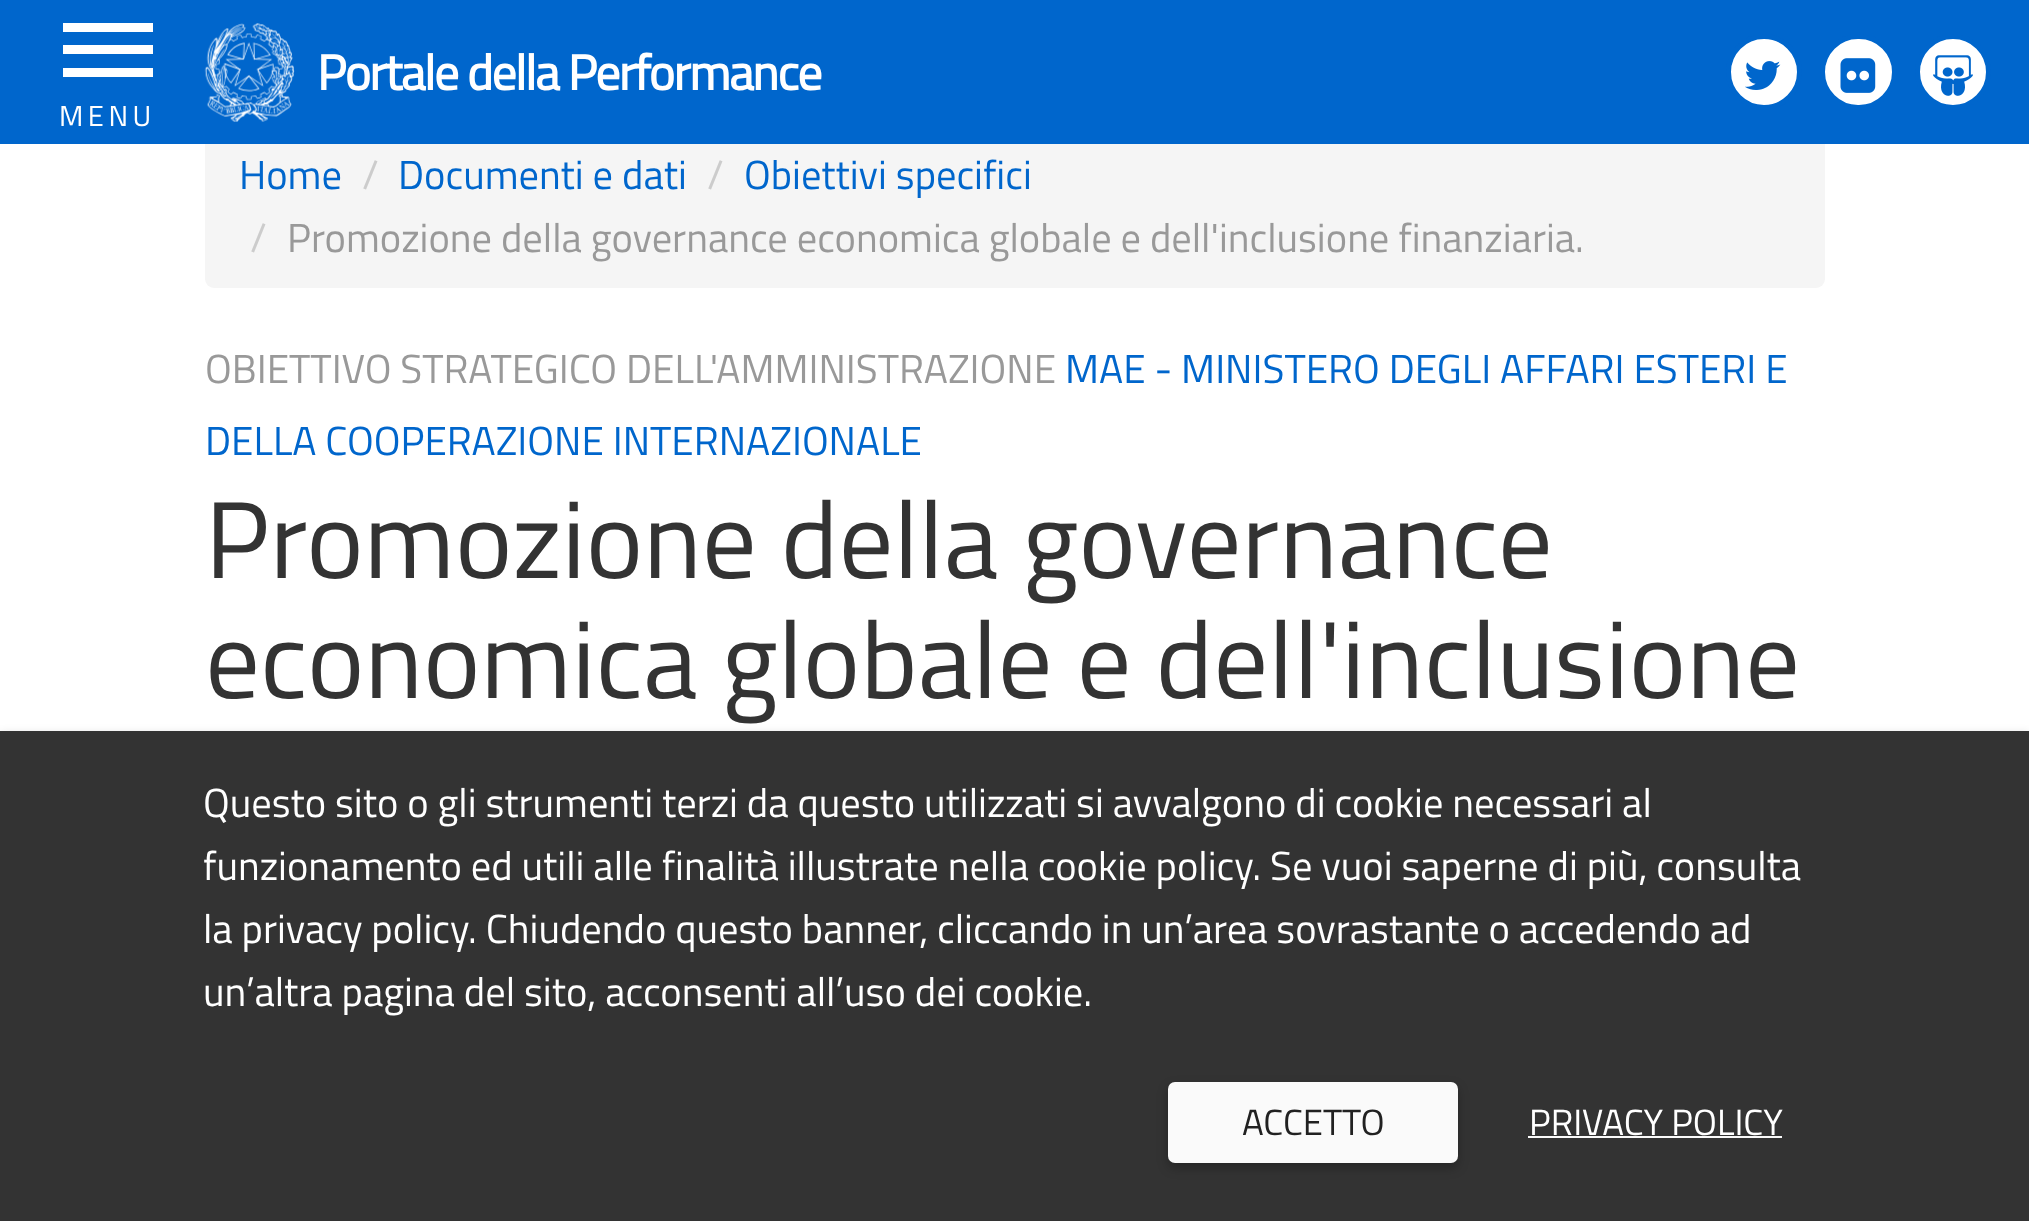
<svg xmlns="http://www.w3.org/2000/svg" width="2029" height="1221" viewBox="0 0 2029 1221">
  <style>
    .t1 { font: bold 49.5px Titillium Web; letter-spacing: -1.5px; fill: #fff; }
    .t2 { font: 29px Titillium Web; letter-spacing: 4.5px; fill: #fff; }
    .t3 { font: 40.5px Titillium Web; fill: #06c; }
    .t4 { font: 40.5px Titillium Web; fill: #ccc; }
    .t5 { font: 40.5px Titillium Web; fill: #999; }
    .t6 { font: 109px Titillium Web; fill: #333; }
    .t7 { font: 40.5px Titillium Web; fill: #fff; }
    .t8 { font: 36.5px Titillium Web; fill: #212121; }
    .t9 { font: 36.5px Titillium Web; fill: #fff; }
  </style>
  <rect width="100%" height="100%" fill="#fff"/>
  <rect x="205" y="126" width="1620" height="162" rx="9" fill="#f5f5f5"/>
  <rect x="0" y="0" width="2029" height="144" fill="#06c"/>
  <image x="204" y="23" width="91" height="99" href="images/1.png"/>
  <text x="317" y="90" class="t1">Portale della Performance</text>
  <circle cx="1764" cy="72" r="35.5" fill="#fff" stroke="#06c" stroke-width="5"/>
  <image x="1745" y="61" width="36" height="29" href="images/2.png"/>
  <rect x="1822.5" y="36.5" width="72" height="71" rx="35.5" fill="#fff" stroke="#06c" stroke-width="5"/>
  <image x="1840" y="58" width="36" height="35" href="images/3.png"/>
  <circle cx="1953" cy="72" r="35.5" fill="#fff" stroke="#06c" stroke-width="5"/>
  <image x="1933" y="55" width="40" height="41" href="images/4.png"/>
  <rect x="63" y="23" width="90" height="9" fill="#fff"/>
  <rect x="63" y="45" width="90" height="9" fill="#fff"/>
  <rect x="63" y="68" width="90" height="9" fill="#fff"/>
  <text x="59" y="126" class="t2">MENU</text>
  <text x="239" y="189" class="t3">Home</text>
  <text x="362" y="189" class="t4">/</text>
  <text x="398" y="189" class="t3">Documenti e dati</text>
  <text x="707" y="189" class="t4">/</text>
  <text x="744" y="189" class="t3">Obiettivi specifici</text>
  <text x="250" y="252" class="t4">/</text>
  <text x="287" y="252" class="t5">Promozione della governance economica globale e dell'inclusione finanziaria.</text>
  <text x="205" y="383" class="t5">OBIETTIVO STRATEGICO DELL'AMMINISTRAZIONE</text>
  <text x="1065" y="383" class="t3">MAE - MINISTERO DEGLI AFFARI ESTERI E</text>
  <text x="205" y="455" class="t3">DELLA COOPERAZIONE INTERNAZIONALE</text>
  <text x="205" y="578" class="t6">Promozione della governance</text>
  <text x="205" y="698" class="t6">economica globale e dell'inclusione</text>
  <rect x="0" y="736" width="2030" height="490" fill="#00000042" filter="blur(5.5px)"/>
  <rect x="0" y="731" width="2029" height="490" fill="#333"/>
  <text x="203" y="817" class="t7">Questo sito o gli strumenti terzi da questo utilizzati si avvalgono di cookie necessari al</text>
  <text x="203" y="880" class="t7">funzionamento ed utili alle finalità illustrate nella cookie policy. Se vuoi saperne di più, consulta</text>
  <text x="203" y="943" class="t7">la privacy policy. Chiudendo questo banner, cliccando in un’area sovrastante o accedendo ad</text>
  <text x="203" y="1006" class="t7">un’altra pagina del sito, acconsenti all’uso dei cookie.</text>
  <rect x="1168" y="1087" width="290" height="81" rx="7" fill="#00000042" filter="blur(5.5px)"/>
  <rect x="1168" y="1082" width="290" height="81" rx="7" fill="#fafafa"/>
  <text x="1242" y="1135" class="t8">ACCETTO</text>
  <text x="1529" y="1135" class="t9">PRIVACY POLICY</text>
  <rect x="1528" y="1136" width="254" height="2" fill="#fafafa"/>
</svg>
